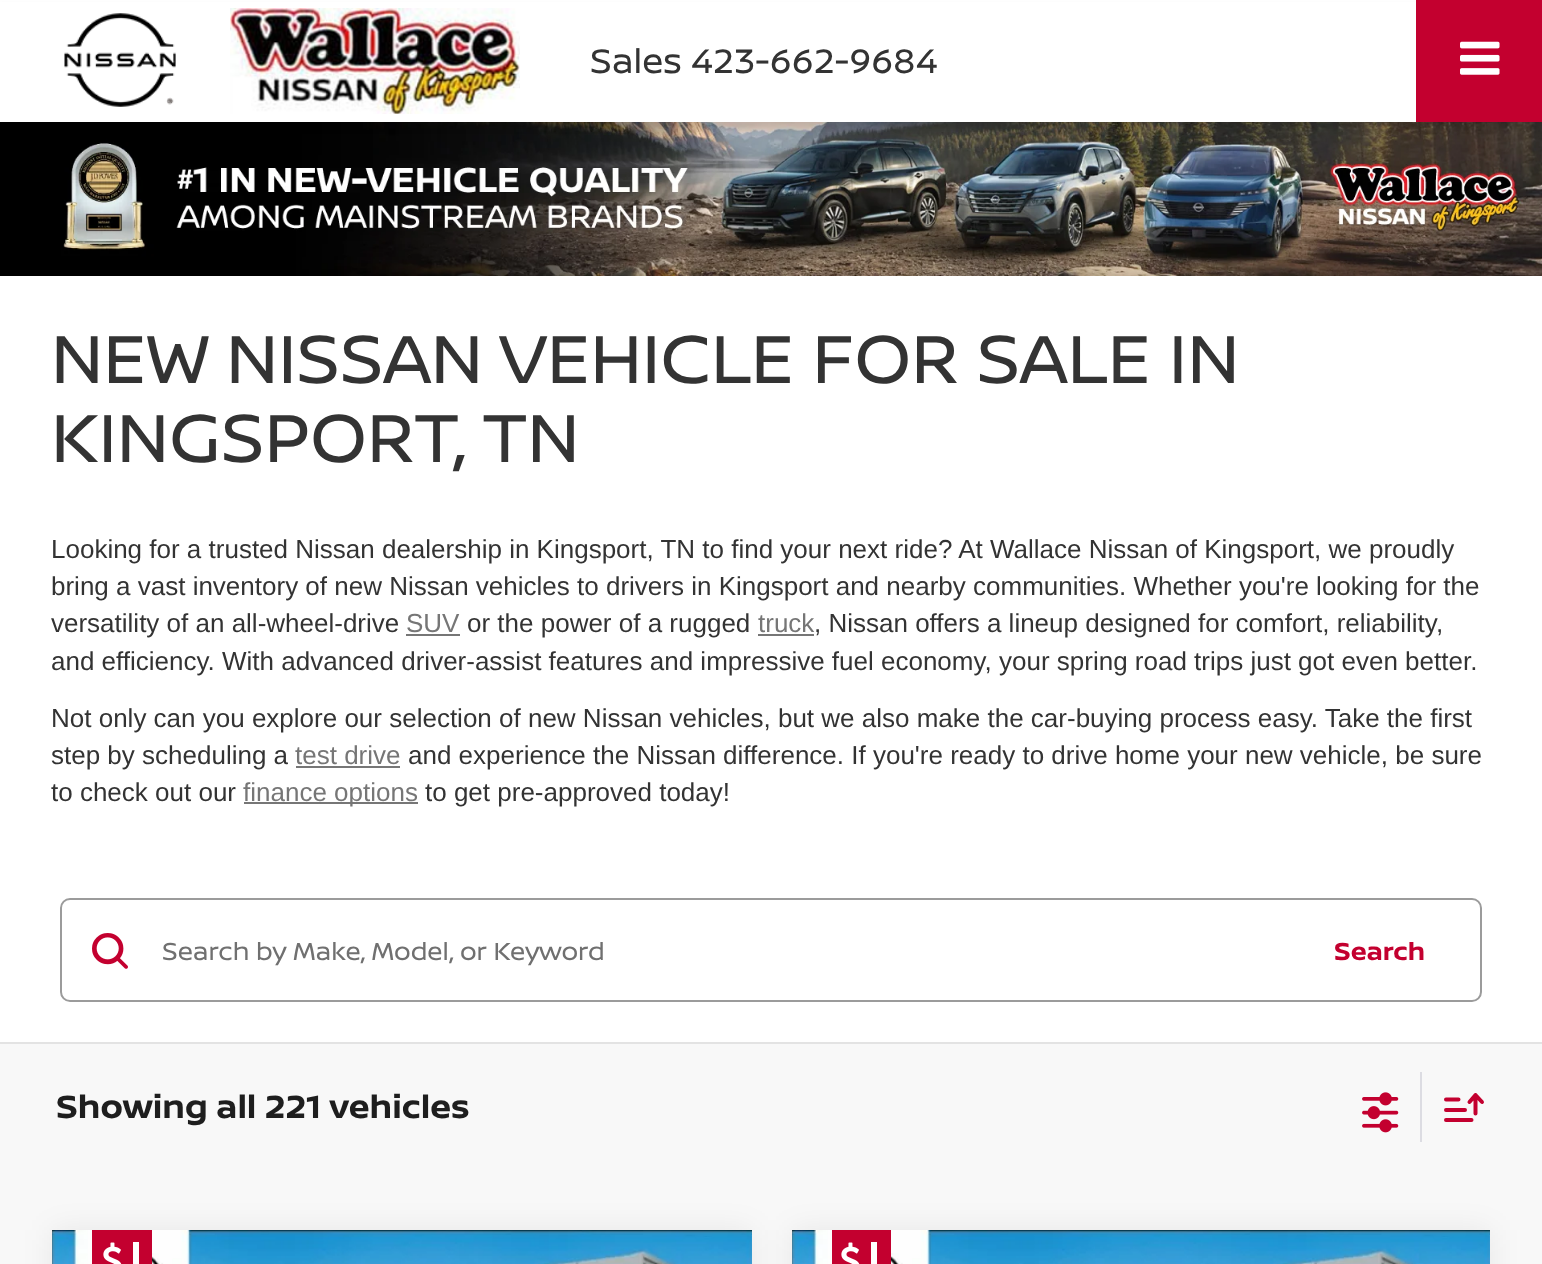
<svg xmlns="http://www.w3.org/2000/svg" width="1542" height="1264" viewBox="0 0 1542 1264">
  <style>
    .t1 { font: 36px 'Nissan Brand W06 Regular'; fill: #333; }
    .t2 { font: 72px 'Nissan Brand W06 Regular'; fill: #333; }
    .t3 { font: 26px Liberation Sans; fill: #333; }
    .t4 { font: 26px Liberation Sans; fill: #767676; }
    .t5 { font: 26px 'Nissan Brand W06 Regular'; fill: #707070; }
    .t6 { font: bold 26px 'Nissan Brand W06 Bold'; fill: #c3002f; }
    .t7 { font: bold 34px 'Nissan Brand W06 Bold'; fill: #1e1e1e; }
  </style>
  <rect width="100%" height="100%" fill="#fff"/>
  <image x="0" y="122" width="1542" height="154" href="images/4.png"/>
  <rect x="0" y="6" width="1542" height="122" fill="#0000001a" filter="blur(3px)"/>
  <rect x="0" y="2" width="1416" height="120" fill="#fff"/>
  <rect x="1416" y="0" width="126" height="122" fill="#c3002f"/>
  <image x="1460" y="41" width="40" height="34" href="images/1.png"/>
  <image x="64" y="13" width="112" height="94" href="images/2.png"/>
  <image x="230" y="8" width="290" height="106" href="images/3.png"/>
  <text x="590" y="73" class="t1">Sales 423-662-9684</text>
  <text x="51" y="383" class="t2">NEW NISSAN VEHICLE FOR SALE IN</text>
  <text x="51" y="462" class="t2">KINGSPORT, TN</text>
  <text x="51" y="558" class="t3">Looking for a trusted Nissan dealership in Kingsport, TN to find your next ride? At Wallace Nissan of Kingsport, we proudly</text>
  <text x="51" y="595" class="t3">bring a vast inventory of new Nissan vehicles to drivers in Kingsport and nearby communities. Whether you're looking for the</text>
  <text x="51" y="632" class="t3">versatility of an all-wheel-drive</text>
  <text x="406" y="632" class="t4">SUV</text>
  <rect x="406" y="634" width="54" height="2" fill="#767676"/>
  <text x="467" y="632" class="t3">or the power of a rugged</text>
  <text x="758" y="632" class="t4">truck</text>
  <rect x="758" y="634" width="56" height="2" fill="#767676"/>
  <text x="814" y="632" class="t3">, Nissan offers a lineup designed for comfort, reliability,</text>
  <text x="51" y="670" class="t3">and efficiency. With advanced driver-assist features and impressive fuel economy, your spring road trips just got even better.</text>
  <text x="51" y="727" class="t3">Not only can you explore our selection of new Nissan vehicles, but we also make the car-buying process easy. Take the first</text>
  <text x="51" y="764" class="t3">step by scheduling a</text>
  <text x="295" y="764" class="t4">test drive</text>
  <rect x="296" y="766" width="104" height="2" fill="#767676"/>
  <text x="408" y="764" class="t3">and experience the Nissan difference. If you're ready to drive home your new vehicle, be sure</text>
  <text x="51" y="801" class="t3">to check out our</text>
  <rect x="244" y="802" width="174" height="2" fill="#767676"/>
  <text x="243" y="801" class="t4">finance options</text>
  <text x="425" y="801" class="t3">to get pre-approved today!</text>
  <rect x="0" y="1044" width="1542" height="220" fill="#f8f8f8"/>
  <rect x="0" y="1042" width="1542" height="2" fill="#e3e3e3"/>
  <rect x="61" y="899" width="1420" height="102" rx="9" fill="none" stroke="#9b9b9b" stroke-width="2"/>
  <image x="92" y="933" width="36" height="36" href="images/5.png"/>
  <text x="162" y="960" class="t5">Search by Make, Model, or Keyword</text>
  <text x="1334" y="960" class="t6">Search</text>
  <text x="56" y="1118" class="t7">Showing all 221 vehicles</text>
  <image x="1362" y="1092" width="37" height="41" href="images/6.png"/>
  <rect x="1420" y="1072" width="2" height="70" fill="#dcdce2"/>
  <path d="M1446 1120H1471.5M1446 1110H1465M1446 1099.5H1458.5M1475.5 1113.5V1095M1475.5 1095L1482 1102M1475.5 1095L1469.5 1102" fill="none" stroke="#c3002f" stroke-width="4" stroke-linecap="round" stroke-linejoin="round"/>
  <rect x="52" y="1230" width="700" height="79" fill="#00000012" filter="blur(15px)"/>
  <rect x="792" y="1230" width="698" height="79" fill="#00000012" filter="blur(15px)"/>
  <image x="52" y="1230" width="700" height="34" href="images/7.png"/>
  <path d="M92 1230V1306L122 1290L152 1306V1230Z" fill="#c3002f"/>
  <image x="103" y="1242" width="19" height="22" href="images/8.png"/>
  <rect x="133" y="1242" width="6" height="22" fill="#fff"/>
  <image x="792" y="1230" width="698" height="34" href="images/9.png"/>
  <path d="M832 1230V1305L861 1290L891 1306V1230Z" fill="#c3002f"/>
  <image x="841" y="1242" width="19" height="22" href="images/8.png"/>
  <rect x="871" y="1242" width="6" height="22" fill="#fff"/>
</svg>
